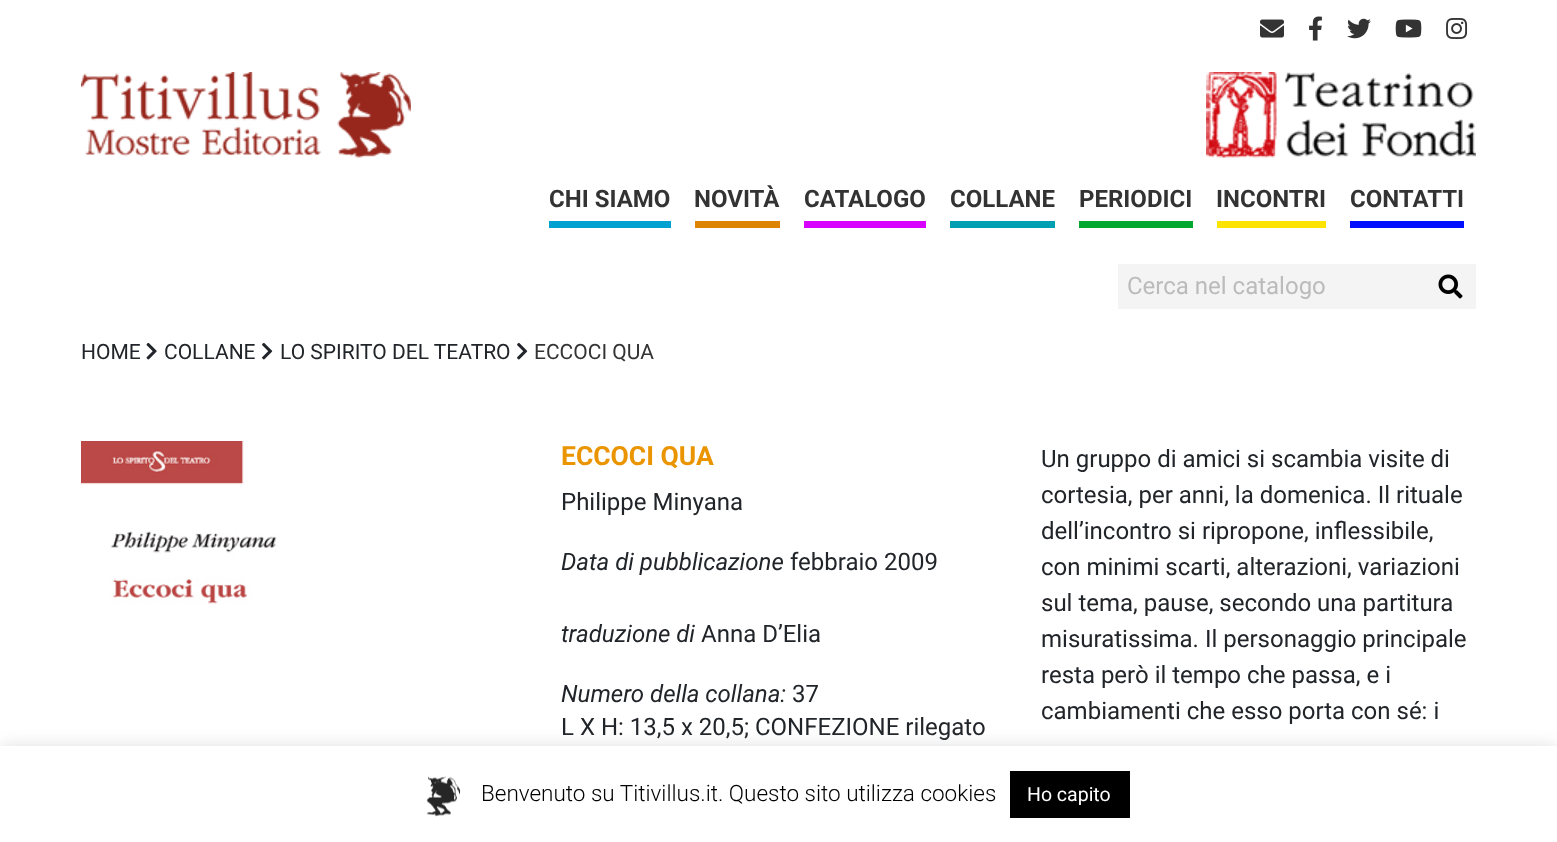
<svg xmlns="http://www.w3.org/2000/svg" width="1557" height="842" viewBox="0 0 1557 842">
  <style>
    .t1 { font: bold 24px Roboto; fill: #333; }
    .t2 { font: 24px Roboto; fill: #bbb; }
    .t3 { font: 21px Roboto; fill: #212529; }
    .t4 { font: 21px Roboto; fill: #333; }
    .t5 { font: bold 26.5px Roboto; fill: #ea9400; }
    .t6 { font: 24px Roboto; fill: #212529; }
    .t7 { font: italic 24px Roboto; fill: #212529; }
    .t8 { font: 300 22.5px Roboto; fill: #000; }
    .t9 { font: 19.5px Roboto; fill: #fff; }
  </style>
  <rect width="100%" height="100%" fill="#fff"/>
  <image x="1260" y="19" width="24" height="19" href="images/1.png"/>
  <image x="1309" y="16" width="13" height="25" href="images/2.png"/>
  <image x="1347" y="18" width="24" height="21" href="images/3.png"/>
  <image x="1395" y="19" width="27" height="19" href="images/4.png"/>
  <image x="1446" y="18" width="22" height="21" href="images/5.png"/>
  <image x="81" y="72" width="330" height="86" href="images/6.png"/>
  <image x="1206" y="72" width="270" height="86" href="images/7.png"/>
  <text x="549" y="207" class="t1">CHI SIAMO</text>
  <rect x="549" y="221" width="122" height="7" fill="#00a0d1"/>
  <text x="694" y="207" class="t1">NOVITÀ</text>
  <rect x="695" y="221" width="85" height="7" fill="#dd8500"/>
  <text x="804" y="207" class="t1">CATALOGO</text>
  <rect x="804" y="221" width="122" height="7" fill="#d800ff"/>
  <text x="950" y="207" class="t1">COLLANE</text>
  <rect x="950" y="221" width="105" height="7" fill="#00a0b2"/>
  <text x="1079" y="207" class="t1">PERIODICI</text>
  <rect x="1079" y="221" width="114" height="7" fill="#00a832"/>
  <text x="1216" y="207" class="t1">INCONTRI</text>
  <rect x="1217" y="221" width="109" height="7" fill="#fce300"/>
  <text x="1350" y="207" class="t1">CONTATTI</text>
  <rect x="1350" y="221" width="114" height="7" fill="#0010ff"/>
  <rect x="1118" y="264" width="358" height="45" fill="#f4f4f4"/>
  <text x="1127" y="294" class="t2">Cerca nel catalogo</text>
  <image x="1438" y="274" width="25" height="25" href="images/8.png"/>
  <text x="81" y="359" class="t3">HOME</text>
  <image x="146" y="342" width="11" height="18" href="images/9.png"/>
  <text x="164" y="359" class="t3">COLLANE</text>
  <image x="262" y="342" width="11" height="18" href="images/10.png"/>
  <text x="280" y="359" class="t3">LO SPIRITO DEL TEATRO</text>
  <image x="517" y="342" width="11" height="18" href="images/10.png"/>
  <text x="534" y="359" class="t4">ECCOCI QUA</text>
  <image x="81" y="441" width="389" height="305" href="images/11.png"/>
  <text x="561" y="465" class="t5">ECCOCI QUA</text>
  <text x="561" y="510" class="t6">Philippe Minyana</text>
  <text x="561" y="570" class="t7">Data di pubblicazione</text>
  <text x="790" y="570" class="t6">febbraio 2009</text>
  <text x="561" y="642" class="t7">traduzione di</text>
  <text x="701" y="642" class="t6">Anna D’Elia</text>
  <text x="561" y="702" class="t7">Numero della collana:</text>
  <text x="792" y="702" class="t6">37</text>
  <text x="561" y="735" class="t6">L X H: 13,5 x 20,5; CONFEZIONE rilegato</text>
  <text x="1041" y="467" class="t6">Un gruppo di amici si scambia visite di</text>
  <text x="1041" y="503" class="t6">cortesia, per anni, la domenica. Il rituale</text>
  <text x="1041" y="539" class="t6">dell’incontro si ripropone, inflessibile,</text>
  <text x="1041" y="575" class="t6">con minimi scarti, alterazioni, variazioni</text>
  <text x="1041" y="611" class="t6">sul tema, pause, secondo una partitura</text>
  <text x="1041" y="647" class="t6">misuratissima. Il personaggio principale</text>
  <text x="1041" y="683" class="t6">resta però il tempo che passa, e i</text>
  <text x="1041" y="719" class="t6">cambiamenti che esso porta con sé: i</text>
  <rect x="0" y="744" width="1557" height="98" fill="#acabab4d" filter="blur(7.5px)"/>
  <rect x="0" y="746" width="1557" height="96" fill="#fff"/>
  <image x="426" y="776" width="35" height="41" href="images/12.png"/>
  <text x="481" y="801" class="t8">Benvenuto su Titivillus.it. Questo sito utilizza cookies</text>
  <rect x="1010" y="771" width="120" height="47" fill="#000"/>
  <text x="1027" y="801" class="t9">Ho capito</text>
</svg>
